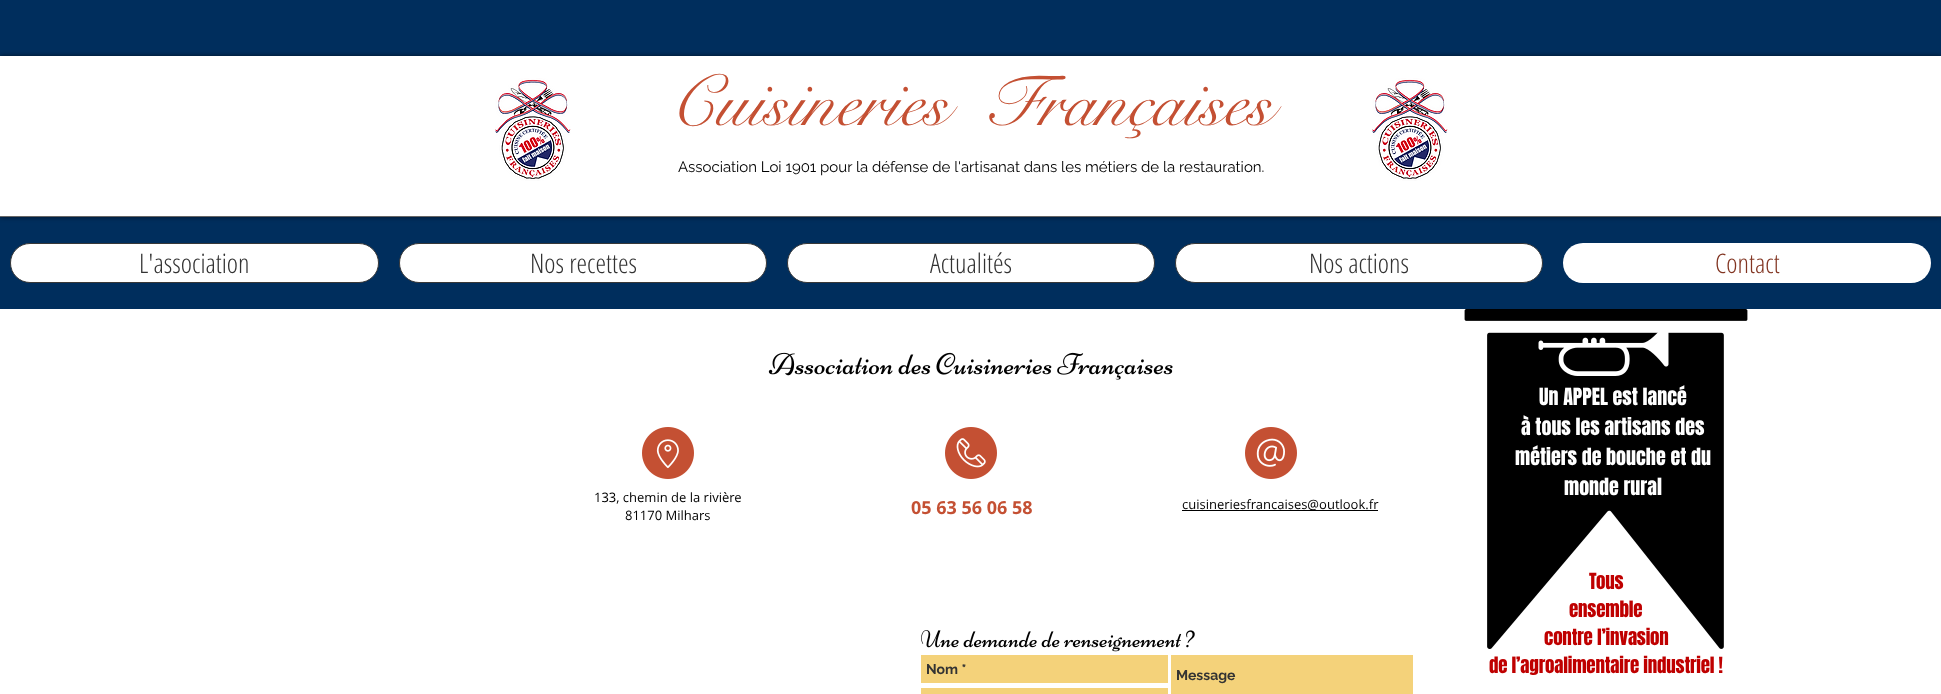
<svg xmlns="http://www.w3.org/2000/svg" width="1941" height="694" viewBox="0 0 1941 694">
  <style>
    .t1 { font: 72px 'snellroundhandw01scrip'; fill: #c45033; }
    .t2 { font: 15px Raleway; fill: #000; }
    .t3 { font: 300 27px Open Sans Condensed; fill: #333; }
    .t4 { font: 300 27px Open Sans Condensed; fill: #823522; }
    .t5 { font: 20px Anton; fill: #fff; }
    .t6 { font: 13px Open Sans; fill: #000; }
    .t7 { font: bold 18px Open Sans; fill: #c45033; }
    .t8 { font: 19px Anton; letter-spacing: -0.2px; fill: #bf0000; }
    .t9 { font: bold 14px Raleway; fill: #333; }
  </style>
  <rect width="100%" height="100%" fill="#fff"/>
  <rect x="0" y="0" width="1941" height="309" fill="#002e5d"/>
  <rect x="0" y="56" width="1941" height="161" fill="#00000099" filter="blur(2.5px)"/>
  <rect x="0" y="56" width="1941" height="160" fill="#fff"/>
  <rect x="0" y="216" width="1941" height="1" fill="#666"/>
  <image x="495" y="78" width="76" height="103" href="images/1.png"/>
  <text x="669" y="125" class="t1" xml:space="preserve">Cuisineries  Françaises</text>
  <image x="1372" y="78" width="76" height="103" href="images/1.png"/>
  <text x="678" y="172" class="t2">Association Loi 1901 pour la défense de l'artisanat dans les métiers de la restauration.</text>
  <rect x="10.5" y="243.5" width="368" height="39" rx="19.5" fill="#fff" stroke="#383838"/>
  <text x="139" y="273" class="t3">L'association</text>
  <rect x="399.5" y="243.5" width="367" height="39" rx="19.5" fill="#fff" stroke="#383838"/>
  <text x="530" y="273" class="t3">Nos recettes</text>
  <rect x="787.5" y="243.5" width="367" height="39" rx="19.5" fill="#fff" stroke="#383838"/>
  <text x="930" y="273" class="t3">Actualités</text>
  <rect x="1175.5" y="243.5" width="367" height="39" rx="19.5" fill="#fff" stroke="#383838"/>
  <text x="1309" y="273" class="t3">Nos actions</text>
  <rect x="1563" y="243" width="368" height="40" rx="20" fill="#fff"/>
  <text x="1715" y="273" class="t4">Contact</text>
  <image x="1464" y="309" width="284" height="340" href="images/2.png"/>
  <image x="768" y="352" width="163" height="24" href="images/3.png"/>
  <image x="936" y="352" width="237" height="28" href="images/4.png"/>
  <image x="1538" y="332" width="131" height="44" href="images/5.png"/>
  <image x="642" y="427" width="52" height="52" href="images/6.png"/>
  <image x="945" y="427" width="52" height="52" href="images/7.png"/>
  <image x="1245" y="427" width="52" height="52" href="images/8.png"/>
  <text x="1539" y="405" class="t5">Un APPEL est lancé</text>
  <text x="1521" y="435" class="t5">à tous les artisans des</text>
  <text x="1515" y="465" class="t5">métiers de bouche et du</text>
  <text x="1564" y="495" class="t5">monde rural</text>
  <text x="594" y="502" class="t6">133, chemin de la rivière</text>
  <text x="625" y="520" class="t6">81170 Milhars</text>
  <text x="911" y="514" class="t7">05 63 56 06 58</text>
  <rect x="1182" y="510" width="196" height="1" fill="#000"/>
  <text x="1182" y="509" class="t6">cuisineriesfrancaises@outlook.fr</text>
  <image x="921" y="630" width="274" height="22" href="images/9.png"/>
  <text x="1589" y="589" class="t8">Tous</text>
  <text x="1569" y="617" class="t8">ensemble</text>
  <text x="1544" y="645" class="t8">contre l’invasion</text>
  <text x="1489" y="673" class="t8">de l’agroalimentaire industriel !</text>
  <rect x="921" y="655" width="247" height="28" fill="#f4d27a"/>
  <text x="926" y="674" class="t9">Nom *</text>
  <rect x="1171" y="655" width="242" height="39" fill="#f4d27a"/>
  <text x="1176" y="680" class="t9">Message</text>
  <rect x="921" y="688" width="247" height="6" fill="#f4d27a"/>
</svg>
